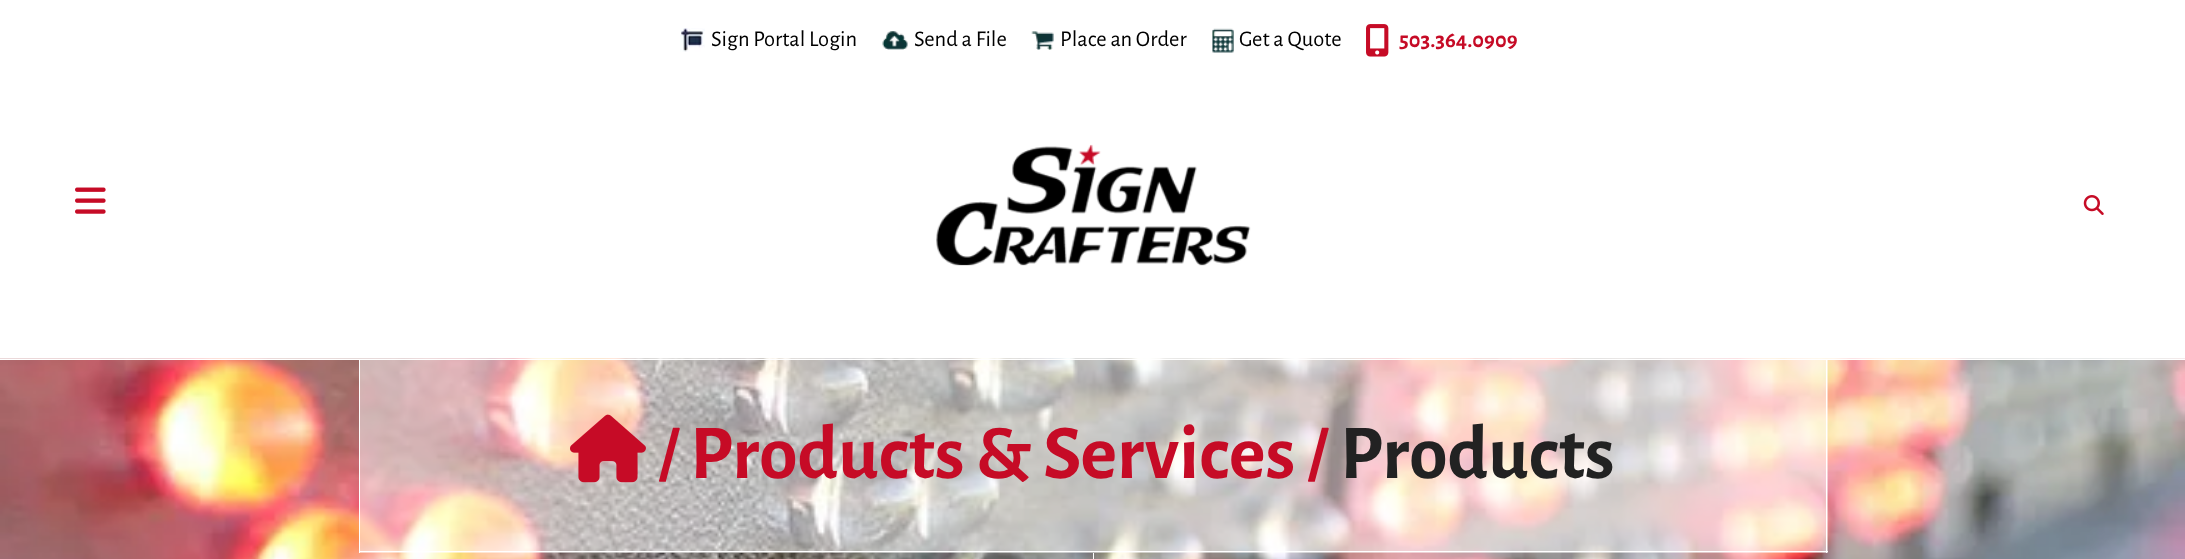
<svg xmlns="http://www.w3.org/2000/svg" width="2185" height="559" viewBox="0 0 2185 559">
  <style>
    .t1 { font: 22.5px Alegreya Sans; fill: #000; }
    .t2 { font: bold 22.5px Alegreya Sans; fill: #c60b26; }
    .t3 { font: bold 68px Alegreya Sans; fill: #c60b26; }
    .t4 { font: bold 77.5px Alegreya Sans; fill: #c60b26; }
    .t5 { font: bold 77.5px Alegreya Sans; fill: #222; }
  </style>
  <rect width="100%" height="100%" fill="#fff"/>
  <image x="680" y="28" width="25" height="24" href="images/1.png"/>
  <text x="711" y="46" class="t1">Sign Portal Login</text>
  <image x="882" y="31" width="26" height="19" href="images/2.png"/>
  <text x="914" y="46" class="t1">Send a File</text>
  <image x="1031" y="31" width="23" height="19" href="images/3.png"/>
  <text x="1060" y="46" class="t1">Place an Order</text>
  <image x="1212" y="28" width="22" height="25" href="images/4.png"/>
  <text x="1239" y="46" class="t1">Get a Quote</text>
  <image x="1366" y="24" width="23" height="33" href="images/5.png"/>
  <text x="1399" y="47" class="t2">503.364.0909</text>
  <image x="75" y="187" width="31" height="27" href="images/6.png"/>
  <image x="936" y="144" width="315" height="122" href="images/7.png"/>
  <image x="2083" y="195" width="21" height="20" href="images/8.png"/>
  <image x="0" y="358" width="2185" height="201" href="images/9.png"/>
  <rect x="0" y="359" width="2185" height="1" fill="#fff"/>
  <rect x="360" y="360" width="1468" height="193" fill="#ffffff80"/>
  <rect x="1826" y="360" width="1" height="193" fill="#fff"/>
  <rect x="359" y="551" width="1469" height="1" fill="#fff"/>
  <rect x="359" y="360" width="1" height="193" fill="#fff"/>
  <image x="570" y="414" width="76" height="69" href="images/10.png"/>
  <text x="659" y="474" class="t3">/</text>
  <text x="690" y="478" class="t4">Products &amp; Services</text>
  <text x="1308" y="474" class="t3">/</text>
  <text x="1340" y="478" class="t5">Products</text>
  <rect x="1093" y="553" width="1" height="6" fill="#fff"/>
</svg>
